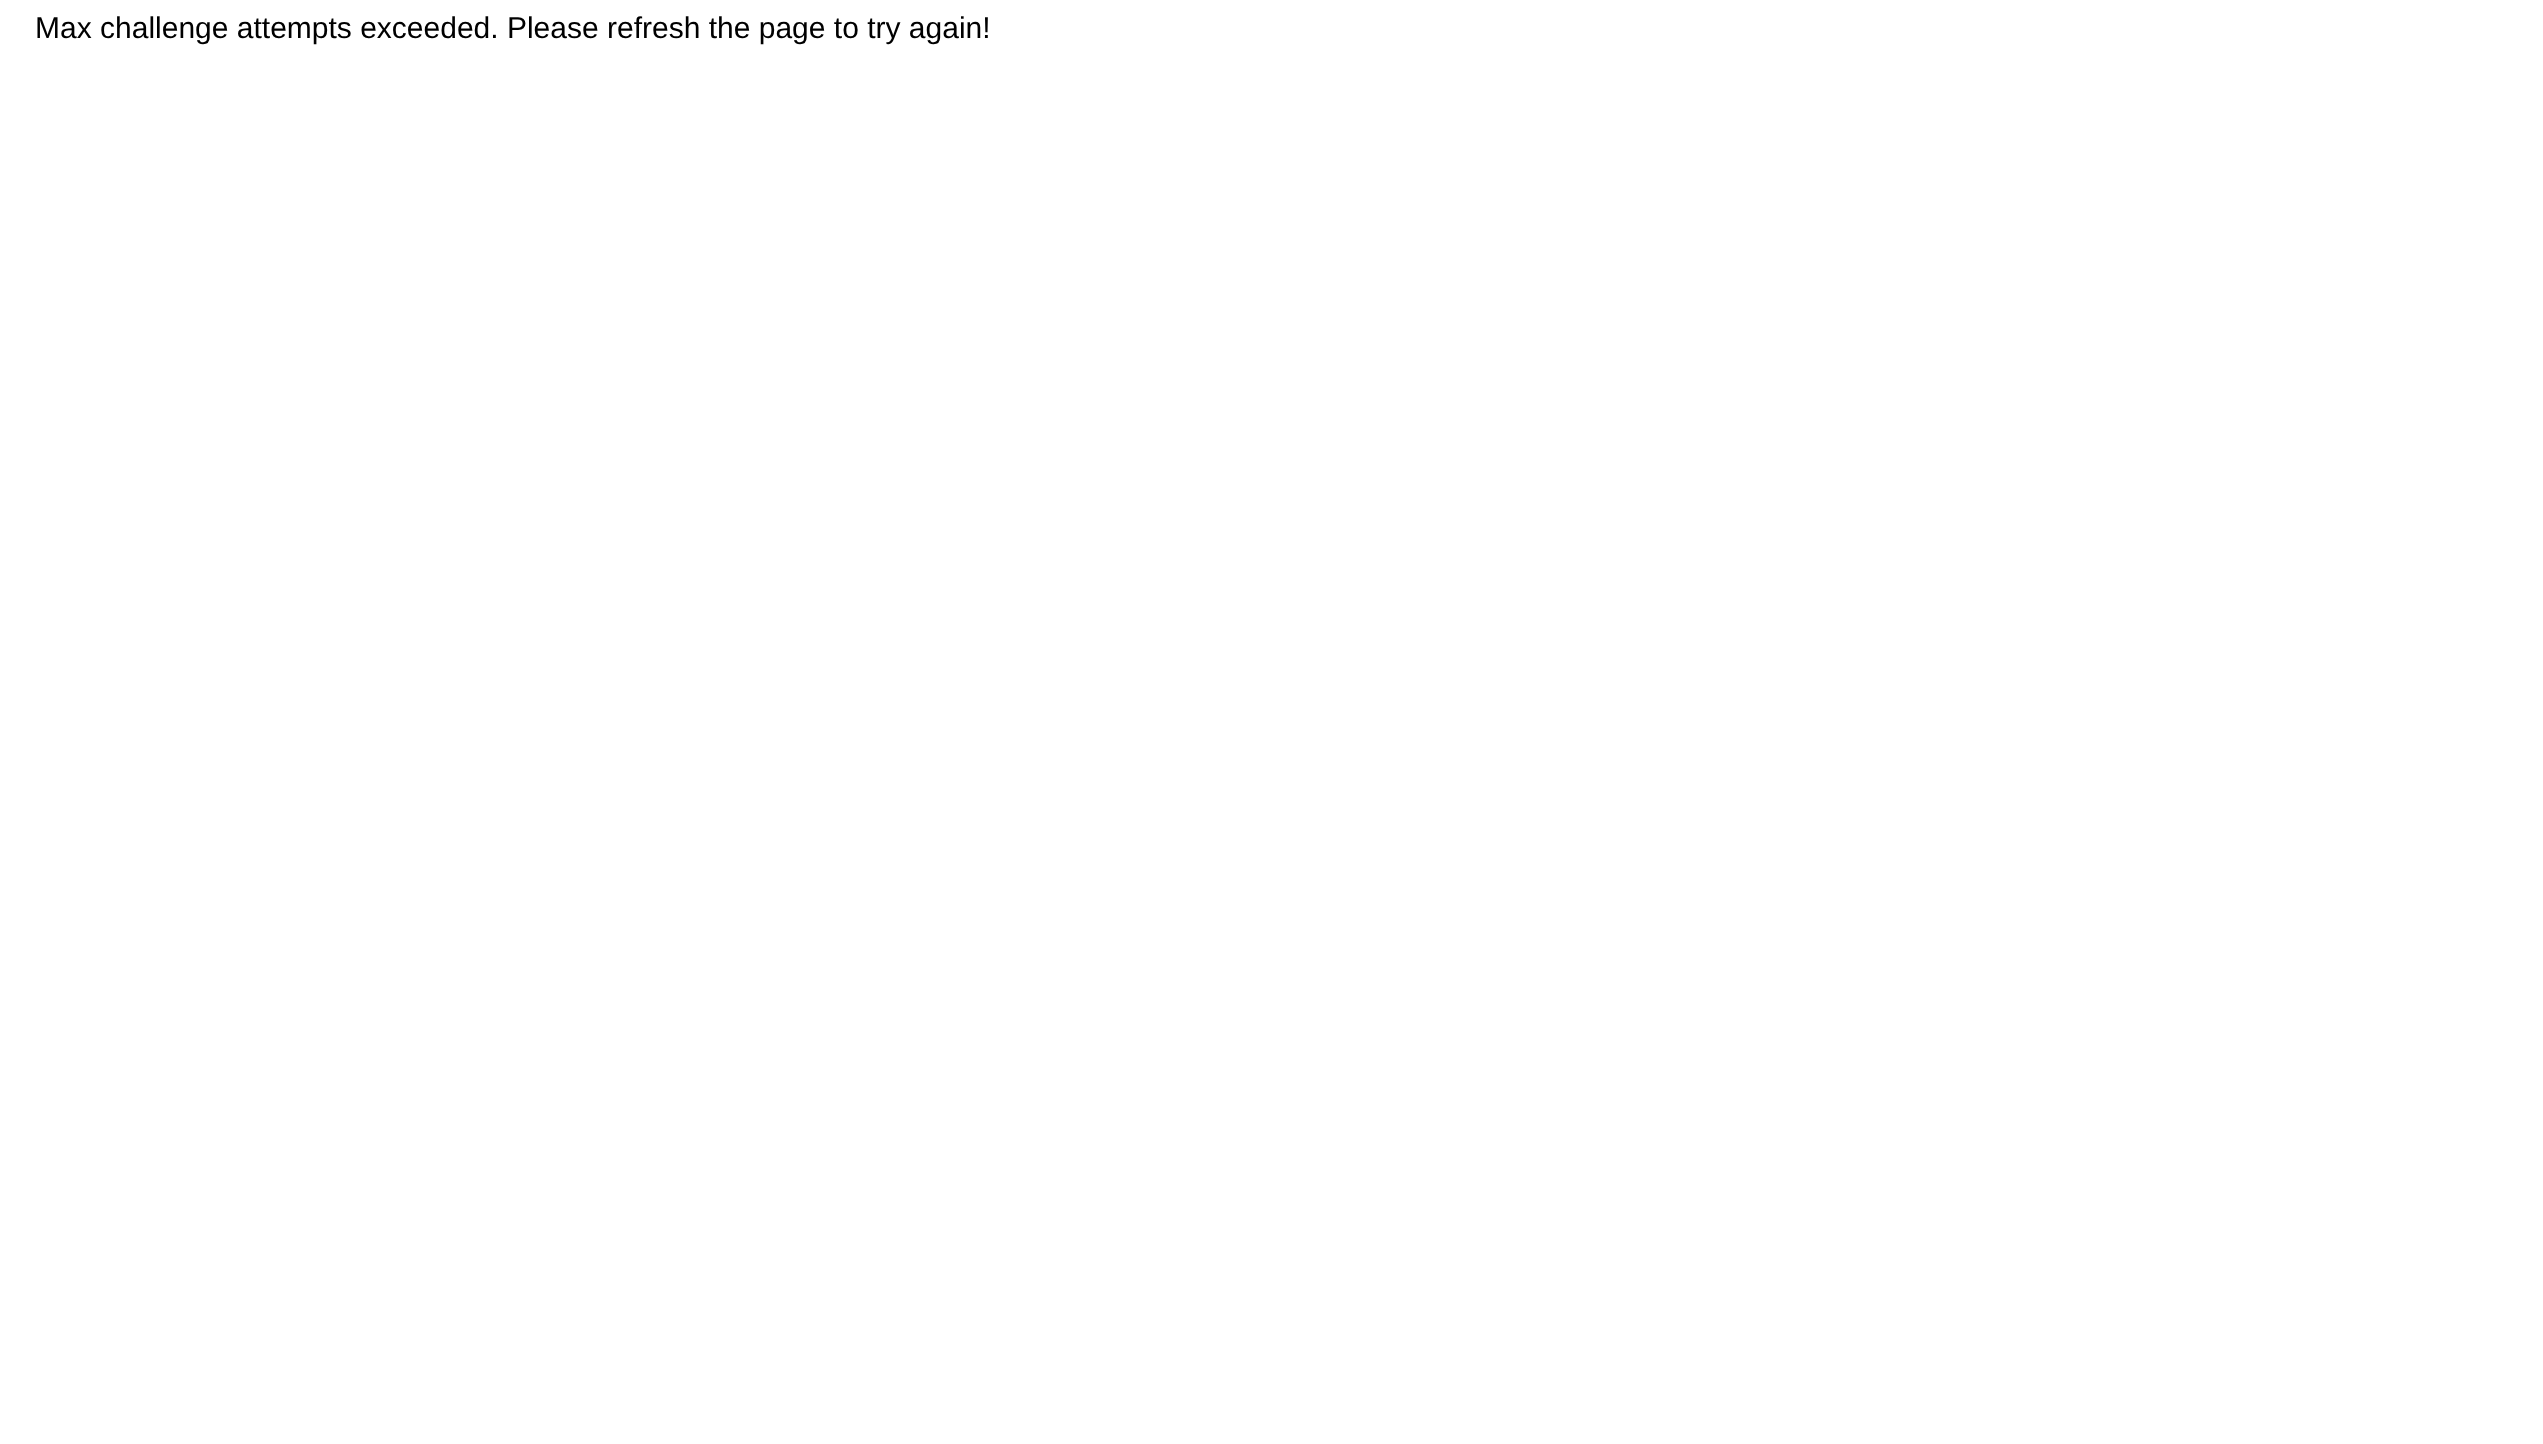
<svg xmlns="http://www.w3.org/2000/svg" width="2543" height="1444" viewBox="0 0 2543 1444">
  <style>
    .t1 { font: 30px Liberation Sans; fill: #000; }
  </style>
  <rect width="100%" height="100%" fill="#fff"/>
  <text x="35" y="38" class="t1">Max challenge attempts exceeded. Please refresh the page to try again!</text>
</svg>
